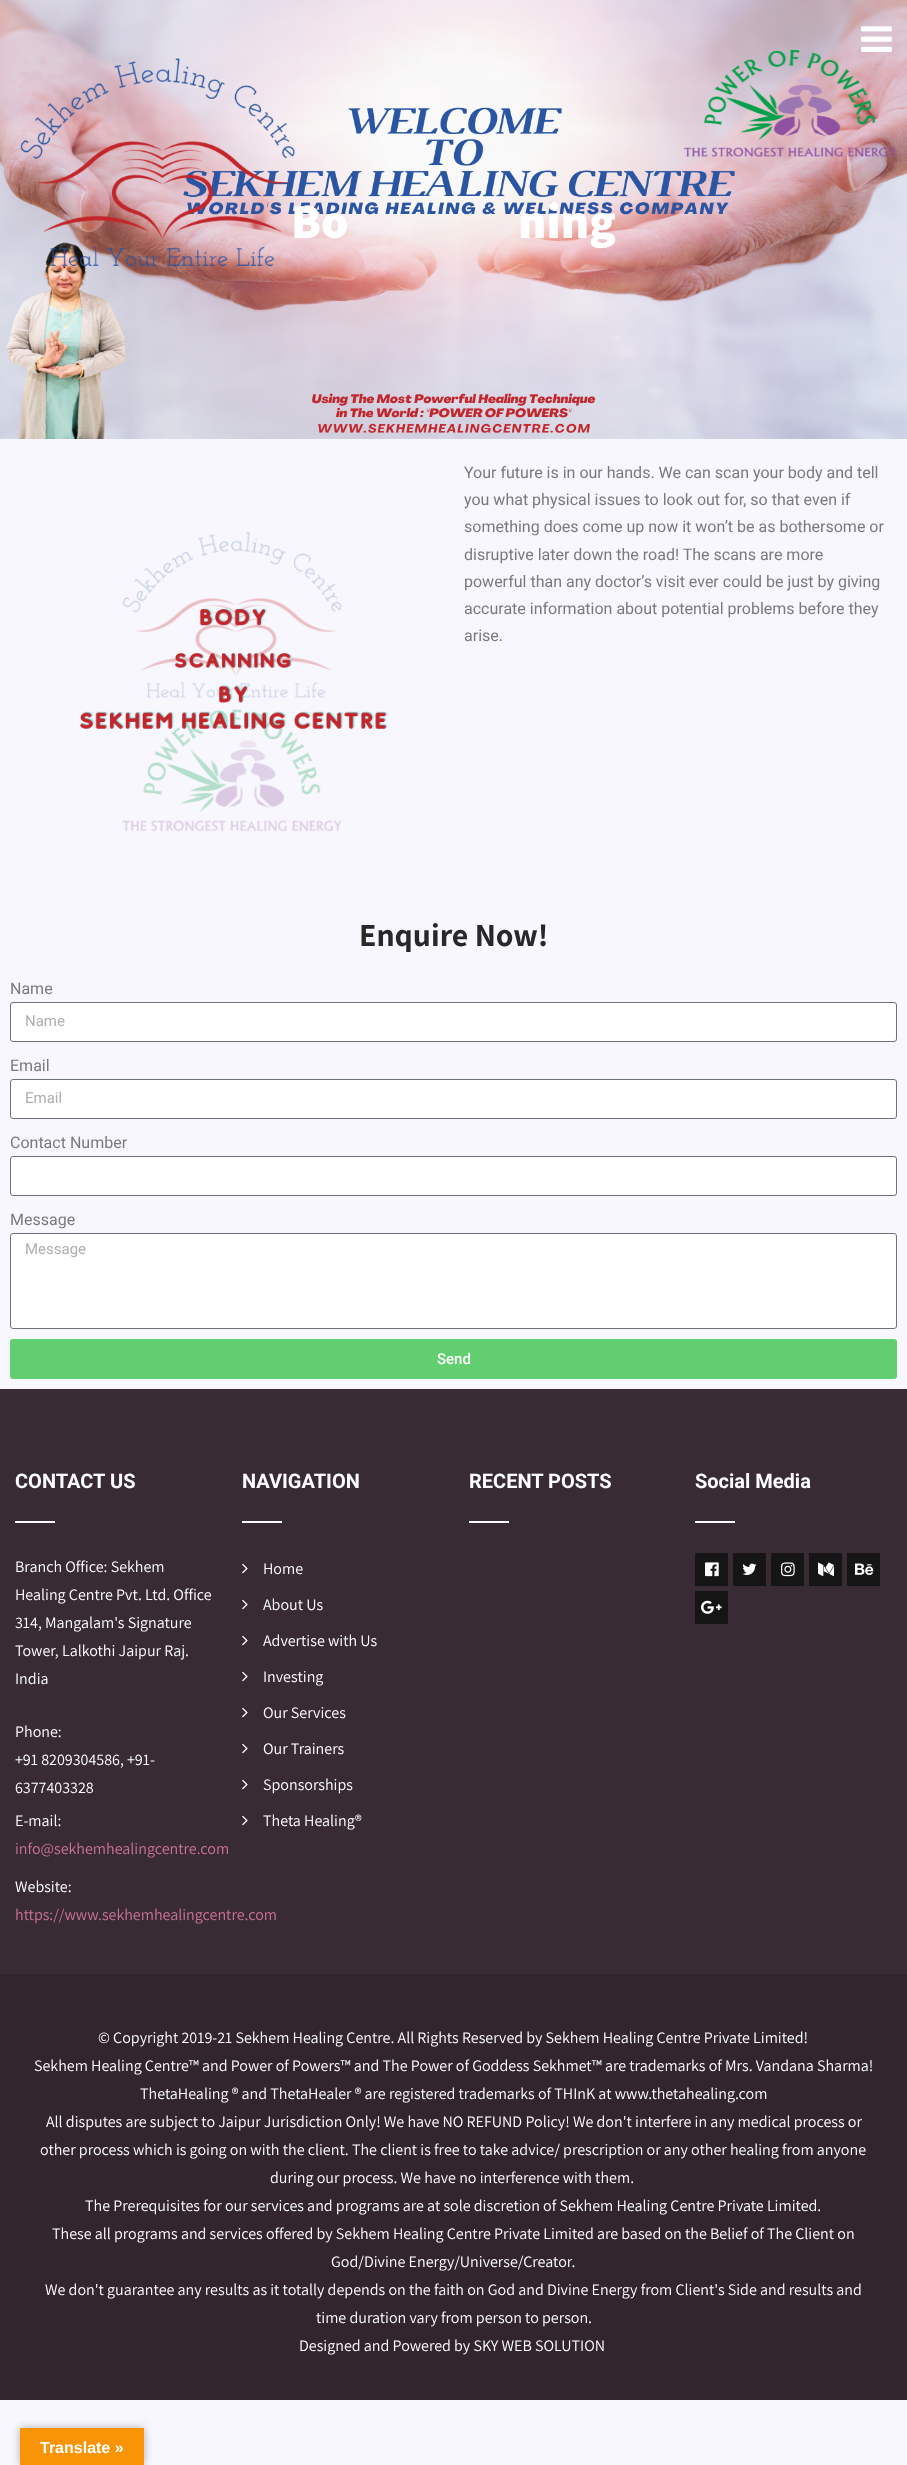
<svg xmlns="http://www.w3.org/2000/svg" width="907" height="2465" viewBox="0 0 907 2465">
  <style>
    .t1 { font: 800 49px Assistant; fill: #fff; }
    .t2 { font: 16px Roboto; fill: #7a7a7a; }
    .t3 { font: bold 32px Assistant; fill: #282828; }
    .t4 { font: 15px Roboto; fill: #afafaf; }
    .t5 { font: 500 15px Roboto; fill: #fff; }
    .t6 { font: bold 20px Roboto; fill: #fff; }
    .t7 { font: 16px Assistant; fill: #fff; }
    .t8 { font: 16px Assistant; fill: #cd7399; }
    .t9 { font: bold 16px Liberation Sans; fill: #fff; }
  </style>
  <rect width="100%" height="100%" fill="#f8f7fd"/>
  <image x="0" y="0" width="907" height="439" href="images/3.png"/>
  <image x="861" y="26" width="31" height="26" href="images/1.png"/>
  <text x="291" y="238" class="t1">Bo</text>
  <image x="20" y="58" width="275" height="208" href="images/2.png"/>
  <text x="518" y="238" class="t1">ning</text>
  <image x="80" y="532" width="308" height="300" href="images/4.png"/>
  <text x="464" y="478" class="t2">Your future is in our hands. We can scan your body and tell</text>
  <text x="464" y="505" class="t2">you what physical issues to look out for, so that even if</text>
  <text x="464" y="532" class="t2">something does come up now it won’t be as bothersome or</text>
  <text x="464" y="560" class="t2">disruptive later down the road! The scans are more</text>
  <text x="464" y="587" class="t2">powerful than any doctor’s visit ever could be just by giving</text>
  <text x="464" y="614" class="t2">accurate information about potential problems before they</text>
  <text x="464" y="641" class="t2">arise.</text>
  <text x="359" y="946" class="t3">Enquire Now!</text>
  <text x="10" y="994" class="t2">Name</text>
  <rect x="10.5" y="1002.5" width="886" height="39" rx="2.5" fill="#fff" stroke="#69727d"/>
  <text x="25" y="1026" class="t4">Name</text>
  <text x="10" y="1071" class="t2">Email</text>
  <rect x="10.5" y="1079.5" width="886" height="39" rx="2.5" fill="#fff" stroke="#69727d"/>
  <text x="25" y="1103" class="t4">Email</text>
  <text x="10" y="1148" class="t2">Contact Number</text>
  <rect x="10.5" y="1156.5" width="886" height="39" rx="2.5" fill="#fff" stroke="#69727d"/>
  <text x="10" y="1225" class="t2">Message</text>
  <rect x="10.5" y="1233.5" width="886" height="95" rx="2.5" fill="#fff" stroke="#69727d"/>
  <text x="25" y="1254" class="t4">Message</text>
  <rect x="10" y="1339" width="887" height="40" rx="3" fill="#61ce70"/>
  <text x="437" y="1364" class="t5">Send</text>
  <rect x="0" y="1389" width="907" height="585" fill="#392b34"/>
  <text x="15" y="1488" class="t6">CONTACT US</text>
  <rect x="15" y="1521" width="40" height="2" fill="#fff"/>
  <text x="15" y="1572" class="t7">Branch Office: Sekhem</text>
  <text x="15" y="1600" class="t7">Healing Centre Pvt. Ltd. Office</text>
  <text x="15" y="1628" class="t7">314, Mangalam's Signature</text>
  <text x="15" y="1656" class="t7">Tower, Lalkothi Jaipur Raj.</text>
  <text x="15" y="1684" class="t7">India</text>
  <text x="15" y="1737" class="t7">Phone:</text>
  <text x="15" y="1765" class="t7">+91 8209304586, +91-</text>
  <text x="15" y="1793" class="t7">6377403328</text>
  <text x="15" y="1826" class="t7">E-mail:</text>
  <text x="15" y="1854" class="t8">info@sekhemhealingcentre.com</text>
  <text x="15" y="1892" class="t7">Website:</text>
  <text x="15" y="1920" class="t8">https://www.sekhemhealingcentre.com</text>
  <text x="242" y="1488" class="t6">NAVIGATION</text>
  <rect x="242" y="1521" width="40" height="2" fill="#fff"/>
  <image x="242" y="1563" width="6" height="11" href="images/5.png"/>
  <text x="263" y="1574" class="t7">Home</text>
  <image x="242" y="1599" width="6" height="11" href="images/5.png"/>
  <text x="263" y="1610" class="t7">About Us</text>
  <image x="242" y="1635" width="6" height="11" href="images/5.png"/>
  <text x="263" y="1646" class="t7">Advertise with Us</text>
  <image x="242" y="1671" width="6" height="11" href="images/5.png"/>
  <text x="263" y="1682" class="t7">Investing</text>
  <image x="242" y="1707" width="6" height="11" href="images/5.png"/>
  <text x="263" y="1718" class="t7">Our Services</text>
  <image x="242" y="1743" width="6" height="11" href="images/5.png"/>
  <text x="263" y="1754" class="t7">Our Trainers</text>
  <image x="242" y="1779" width="6" height="11" href="images/5.png"/>
  <text x="263" y="1790" class="t7">Sponsorships</text>
  <image x="242" y="1815" width="6" height="11" href="images/5.png"/>
  <text x="263" y="1826" class="t7">Theta Healing®</text>
  <text x="469" y="1488" class="t6">RECENT POSTS</text>
  <rect x="469" y="1521" width="40" height="2" fill="#fff"/>
  <text x="695" y="1488" class="t6">Social Media</text>
  <rect x="695" y="1521" width="40" height="2" fill="#fff"/>
  <rect x="695" y="1553" width="33" height="33" fill="#151515"/>
  <image x="705" y="1562" width="14" height="15" href="images/6.png"/>
  <rect x="733" y="1553" width="33" height="33" fill="#151515"/>
  <image x="742" y="1563" width="15" height="12" href="images/7.png"/>
  <rect x="771" y="1553" width="33" height="33" fill="#151515"/>
  <image x="781" y="1562" width="14" height="15" href="images/8.png"/>
  <rect x="809" y="1553" width="33" height="33" fill="#151515"/>
  <image x="818" y="1562" width="16" height="14" href="images/9.png"/>
  <rect x="847" y="1553" width="33" height="33" fill="#151515"/>
  <image x="855" y="1563" width="19" height="12" href="images/10.png"/>
  <rect x="695" y="1591" width="33" height="33" fill="#151515"/>
  <image x="701" y="1600" width="21" height="14" href="images/11.png"/>
  <rect x="0" y="1974" width="907" height="426" fill="#32252d"/>
  <text x="98" y="2043" class="t7">© Copyright 2019-21 Sekhem Healing Centre. All Rights Reserved by Sekhem Healing Centre Private Limited!</text>
  <text x="34" y="2071" class="t7">Sekhem Healing Centre™ and Power of Powers™ and The Power of Goddess Sekhmet™ are trademarks of Mrs. Vandana Sharma!</text>
  <text x="140" y="2099" class="t7">ThetaHealing ® and ThetaHealer ® are registered trademarks of THInK at www.thetahealing.com</text>
  <text x="46" y="2127" class="t7">All disputes are subject to Jaipur Jurisdiction Only! We have NO REFUND Policy! We don't interfere in any medical process or</text>
  <text x="40" y="2155" class="t7">other process which is going on with the client. The client is free to take advice/ prescription or any other healing from anyone</text>
  <text x="270" y="2183" class="t7">during our process. We have no interference with them.</text>
  <text x="85" y="2211" class="t7">The Prerequisites for our services and programs are at sole discretion of Sekhem Healing Centre Private Limited.</text>
  <text x="52" y="2239" class="t7">These all programs and services offered by Sekhem Healing Centre Private Limited are based on the Belief of The Client on</text>
  <text x="331" y="2267" class="t7">God/Divine Energy/Universe/Creator.</text>
  <text x="45" y="2295" class="t7">We don't guarantee any results as it totally depends on the faith on God and Divine Energy from Client's Side and results and</text>
  <text x="316" y="2323" class="t7">time duration vary from person to person.</text>
  <text x="299" y="2351" class="t7">Designed and Powered by SKY WEB SOLUTION</text>
  <rect x="20" y="2428" width="124" height="37" fill="#0000004d" filter="blur(4.5px)"/>
  <rect x="20" y="2428" width="124" height="37" fill="#f89406"/>
  <text x="40" y="2453" class="t9">Translate »</text>
</svg>
